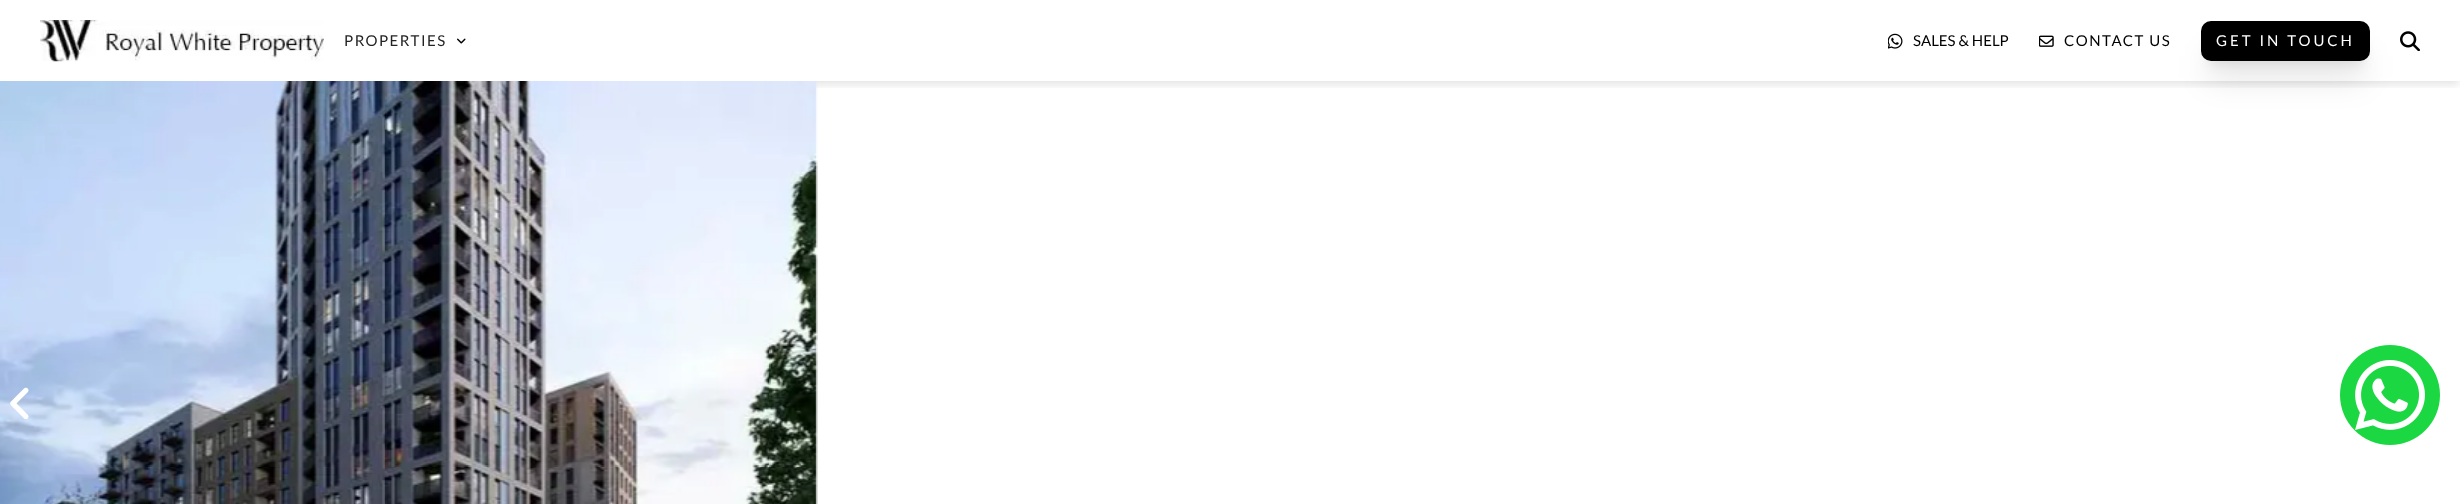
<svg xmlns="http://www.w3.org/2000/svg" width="2460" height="504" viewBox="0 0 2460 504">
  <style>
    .t1 { font: 15px Lato; letter-spacing: 1.5px; fill: #232323; }
    .t2 { font: 15px Lato; fill: #000; }
    .t3 { font: 15px Lato; letter-spacing: 1.5px; fill: #000; }
    .t4 { font: 15px Lato; letter-spacing: 3px; fill: #fff; }
  </style>
  <defs>
    <clipPath id="clip1"><rect x="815" y="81" width="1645" height="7"/></clipPath>
  </defs>
  <rect width="100%" height="100%" fill="#fff"/>
  <g clip-path="url(#clip1)">
    <rect x="1" y="6" width="2458" height="79" fill="#0000001a" filter="blur(4px)"/>
  </g>
  <image x="40" y="20" width="284" height="42" href="images/1.png"/>
  <text x="344" y="46" class="t1">PROPERTIES</text>
  <image x="457" y="38" width="9" height="6" href="images/2.png"/>
  <image x="1888" y="33" width="15" height="16" href="images/3.png"/>
  <text x="1913" y="46" class="t2">SALES &amp; HELP</text>
  <image x="2039" y="35" width="15" height="12" href="images/4.png"/>
  <text x="2064" y="46" class="t3">CONTACT US</text>
  <rect x="2209" y="39" width="154" height="25" rx="2.5" fill="#0000001a" filter="blur(6px)"/>
  <rect x="2208" y="53" width="156" height="27" rx="4" fill="#0000001a" filter="blur(15.5px)"/>
  <rect x="2201" y="21" width="169" height="40" rx="10" fill="#000"/>
  <text x="2216" y="46" class="t4">GET IN TOUCH</text>
  <image x="2400" y="31" width="20" height="20" href="images/5.png"/>
  <image x="0" y="81" width="818" height="423" href="images/6.png"/>
  <image x="10" y="387" width="19" height="32" href="images/7.png"/>
  <image x="2340" y="345" width="100" height="100" href="images/8.png"/>
</svg>
